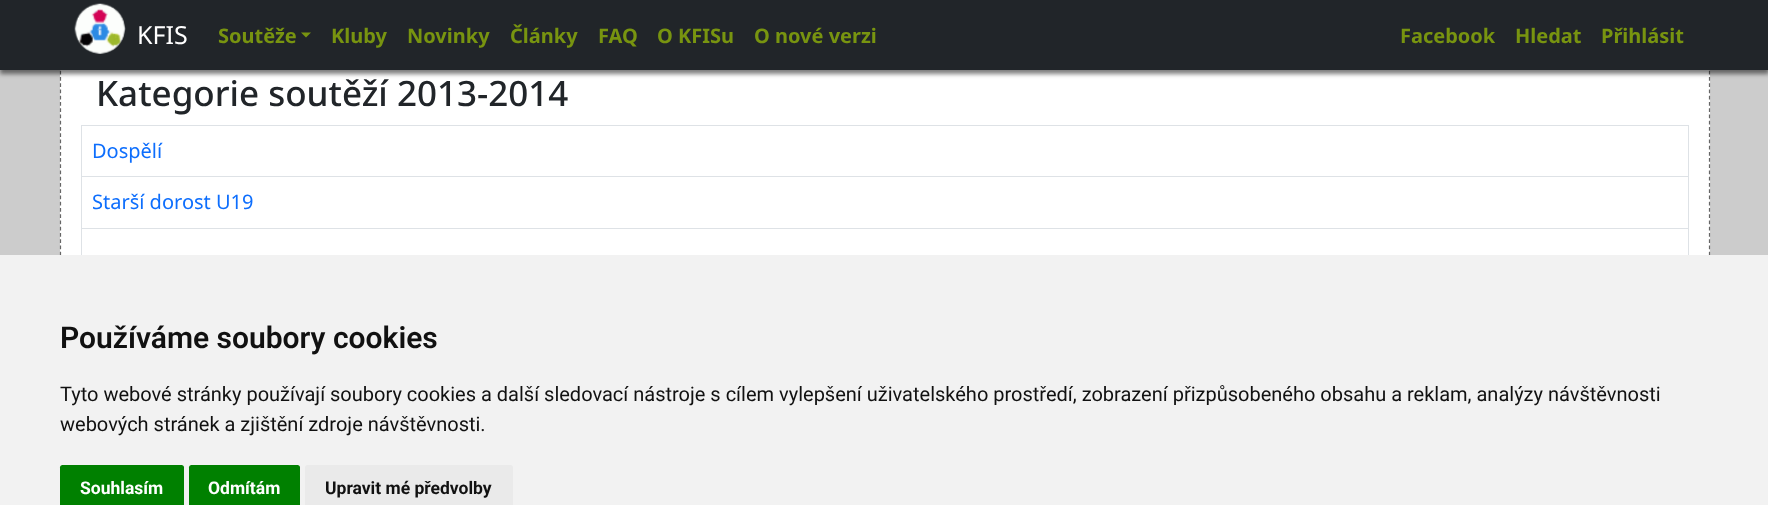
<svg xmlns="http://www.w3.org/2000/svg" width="1768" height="505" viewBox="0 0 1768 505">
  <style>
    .t1 { font: 25px Noto Sans; fill: #fff; }
    .t2 { font: bold 20px Noto Sans; fill: #789410; }
    .t3 { font: 500 35px Noto Sans; fill: #212529; }
    .t4 { font: 20px Noto Sans; fill: #0d6efd; }
    .t5 { font: 600 30px Roboto; fill: #111; }
    .t6 { font: 20px Roboto; fill: #111; }
    .t7 { font: bold 17.5px Roboto; fill: #fff; }
    .t8 { font: bold 17.5px Roboto; fill: #111; }
  </style>
  <rect width="100%" height="100%" fill="#ccc"/>
  <rect x="60" y="70" width="1650" height="185" fill="#fff"/>
  <path d="M1709.5-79V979" fill="none" stroke="#666" stroke-width="1.2" stroke-dasharray="3.75 2.49"/>
  <path d="M60.5-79V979" fill="none" stroke="#666" stroke-width="1.2" stroke-dasharray="3.75 2.49"/>
  <rect x="0" y="4" width="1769" height="70" fill="#00000080" filter="blur(2px)"/>
  <rect x="0" y="0" width="1768" height="70" fill="#212529"/>
  <image x="74" y="3" width="52" height="51" href="images/1.png"/>
  <text x="137" y="44" class="t1">KFIS</text>
  <text x="218" y="43" class="t2">Soutěže</text>
  <path d="M301 32.5H311L306 37.5Z" fill="#789410"/>
  <text x="331" y="43" class="t2">Kluby</text>
  <text x="407" y="43" class="t2">Novinky</text>
  <text x="510" y="43" class="t2">Články</text>
  <text x="598" y="43" class="t2">FAQ</text>
  <text x="657" y="43" class="t2">O KFISu</text>
  <text x="754" y="43" class="t2">O nové verzi</text>
  <text x="1400" y="43" class="t2">Facebook</text>
  <text x="1515" y="43" class="t2">Hledat</text>
  <text x="1601" y="43" class="t2">Přihlásit</text>
  <text x="96" y="106" class="t3">Kategorie soutěží 2013-2014</text>
  <rect x="81" y="228" width="1608" height="1" fill="#dee2e6"/>
  <rect x="81" y="125" width="1608" height="1" fill="#dee2e6"/>
  <rect x="81" y="176" width="1608" height="1" fill="#dee2e6"/>
  <rect x="1688" y="125" width="1" height="130" fill="#dee2e6"/>
  <rect x="81" y="125" width="1" height="130" fill="#dee2e6"/>
  <text x="92" y="158" class="t4">Dospělí</text>
  <text x="92" y="209" class="t4">Starší dorost U19</text>
  <rect x="0" y="255" width="1768" height="250" fill="#f2f2f2"/>
  <text x="60" y="348" class="t5">Používáme soubory cookies</text>
  <text x="60" y="401" class="t6">Tyto webové stránky používají soubory cookies a další sledovací nástroje s cílem vylepšení uživatelského prostředí, zobrazení přizpůsobeného obsahu a reklam, analýzy návštěvnosti</text>
  <text x="60" y="431" class="t6">webových stránek a zjištění zdroje návštěvnosti.</text>
  <path d="M62.5 465H181.5C183 465 184 466 184 467.5V505H60V467.5C60 466 61 465 62.5 465Z" fill="#008000"/>
  <text x="80" y="494" class="t7">Souhlasím</text>
  <path d="M191.5 465H297.5C299 465 300 466 300 467.5V505H189V467.5C189 466 190 465 191.5 465Z" fill="#008000"/>
  <text x="208" y="494" class="t7">Odmítám</text>
  <path d="M307.5 465H510.5C512 465 513 466 513 467.5V505H305V467.5C305 466 306 465 307.5 465Z" fill="#eaeaea"/>
  <text x="325" y="494" class="t8">Upravit mé předvolby</text>
</svg>
